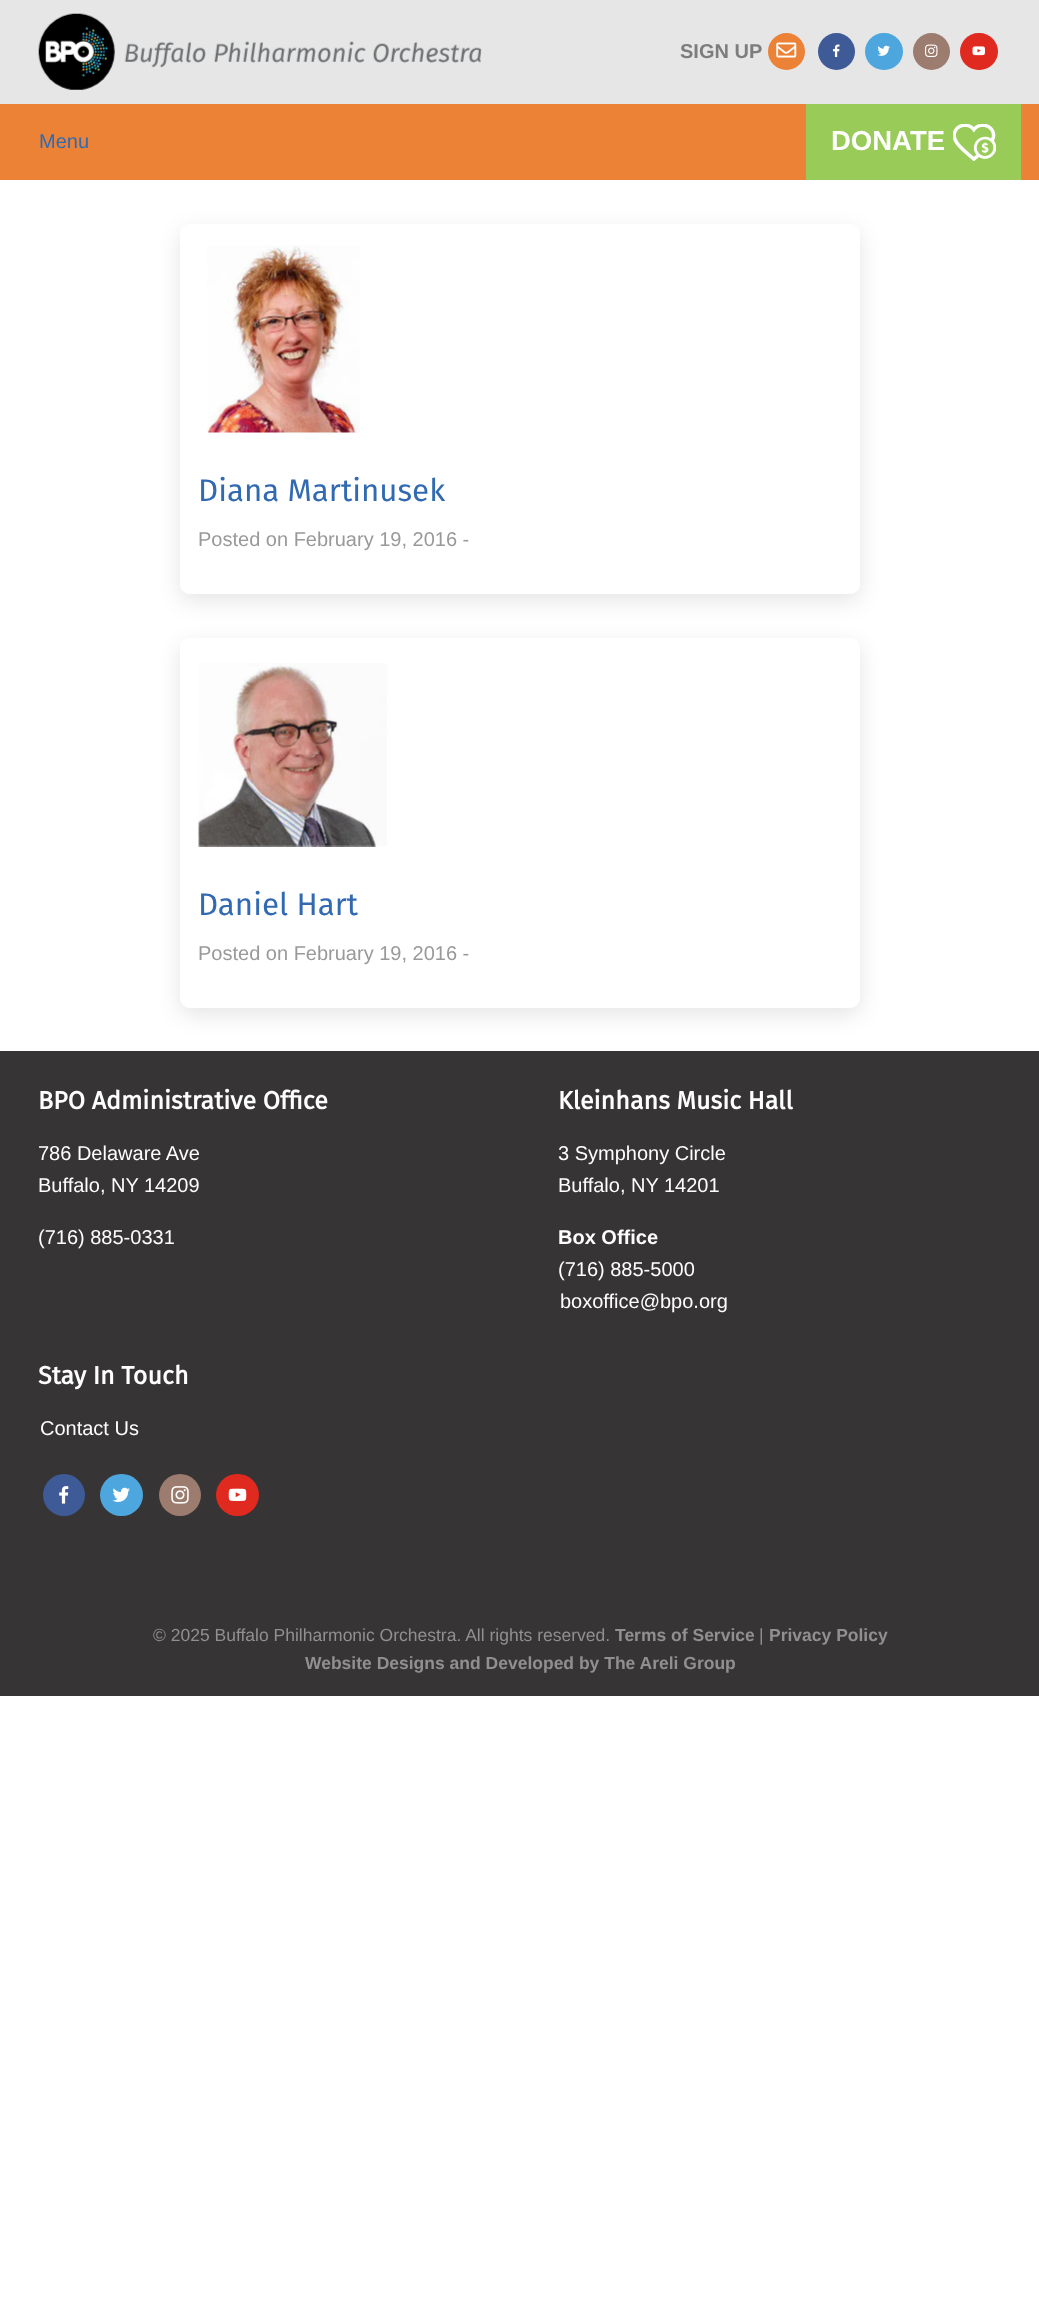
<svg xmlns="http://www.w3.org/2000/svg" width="1039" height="2305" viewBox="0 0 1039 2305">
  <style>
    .t1 { font: bold 20px Liberation Sans; fill: #7d7d7d; }
    .t2 { font: 20px Liberation Sans; fill: #326ab2; }
    .t3 { font: bold 27.5px Liberation Sans; fill: #fefefe; }
    .t4 { font: 31.25px Fira Sans; fill: #326ab2; }
    .t5 { font: 20px Liberation Sans; fill: #999; }
    .t6 { font: bold 25px Fira Sans; fill: #fefefe; }
    .t7 { font: 20px Liberation Sans; fill: #fefefe; }
    .t8 { font: bold 20px Liberation Sans; fill: #fefefe; }
    .t9 { font: 17.5px Liberation Sans; fill: #8f908f; }
    .t10 { font: bold 17.5px Liberation Sans; fill: #8f908f; }
  </style>
  <defs>
    <clipPath id="clip1"><path d="M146 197H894V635H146ZM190 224H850C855.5 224 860 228.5 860 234V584C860 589.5 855.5 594 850 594H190C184.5 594 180 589.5 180 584V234C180 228.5 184.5 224 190 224Z" clip-rule="evenodd"/></clipPath>
    <clipPath id="clip2"><path d="M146 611H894V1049H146ZM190 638H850C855.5 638 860 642.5 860 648V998C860 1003.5 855.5 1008 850 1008H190C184.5 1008 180 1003.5 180 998V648C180 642.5 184.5 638 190 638Z" clip-rule="evenodd"/></clipPath>
  </defs>
  <rect width="100%" height="100%" fill="#fff"/>
  <rect x="0" y="0" width="1039" height="104" fill="#e6e6e6"/>
  <image x="38" y="13" width="444" height="77" href="images/1.png"/>
  <text x="680" y="58" class="t1">SIGN UP</text>
  <circle cx="786.5" cy="51.5" r="18.5" fill="#eb8236"/>
  <image x="776" y="42" width="21" height="16" href="images/2.png"/>
  <circle cx="836.5" cy="51.5" r="18.5" fill="#3e5b98"/>
  <image x="833" y="44" width="7" height="13" href="images/3.png"/>
  <rect x="865" y="33" width="38" height="37" rx="18.5" fill="#4da7de"/>
  <image x="877" y="45" width="13" height="11" href="images/4.png"/>
  <circle cx="931.5" cy="51.5" r="18.5" fill="#9c7c6e"/>
  <image x="925" y="44" width="13" height="13" href="images/5.png"/>
  <rect x="960" y="33" width="38" height="37" rx="18.5" fill="#e02a20"/>
  <image x="972" y="46" width="13" height="10" href="images/6.png"/>
  <rect x="0" y="104" width="1039" height="76" fill="#eb8236"/>
  <text x="39" y="148" class="t2">Menu</text>
  <rect x="806" y="104" width="215" height="76" fill="#98cb57"/>
  <text x="831" y="150" class="t3">DONATE</text>
  <image x="953" y="124" width="43" height="37" href="images/7.png"/>
  <g clip-path="url(#clip1)">
    <rect x="180" y="231" width="680" height="370" rx="10" fill="#0000001a" filter="blur(11px)"/>
  </g>
  <image x="207" y="245" width="153" height="188" href="images/8.png"/>
  <text x="198" y="501" class="t4">Diana Martinusek</text>
  <text x="198" y="546" class="t5">Posted on February 19, 2016 -</text>
  <g clip-path="url(#clip2)">
    <rect x="180" y="645" width="680" height="370" rx="10" fill="#0000001a" filter="blur(11px)"/>
  </g>
  <image x="198" y="663" width="189" height="184" href="images/9.png"/>
  <text x="198" y="915" class="t4">Daniel Hart</text>
  <text x="198" y="960" class="t5">Posted on February 19, 2016 -</text>
  <rect x="0" y="1051" width="1039" height="645" fill="#373435"/>
  <text x="38" y="1109" class="t6">BPO Administrative Office</text>
  <text x="38" y="1160" class="t7">786 Delaware Ave</text>
  <text x="38" y="1192" class="t7">Buffalo, NY 14209</text>
  <text x="38" y="1244" class="t7">(716) 885-0331</text>
  <text x="558" y="1109" class="t6">Kleinhans Music Hall</text>
  <text x="558" y="1160" class="t7">3 Symphony Circle</text>
  <text x="558" y="1192" class="t7">Buffalo, NY 14201</text>
  <text x="558" y="1244" class="t8">Box Office</text>
  <text x="558" y="1276" class="t7">(716) 885-5000</text>
  <text x="560" y="1308" class="t7">boxoffice@bpo.org</text>
  <text x="38" y="1384" class="t6">Stay In Touch</text>
  <text x="40" y="1435" class="t7">Contact Us</text>
  <circle cx="64" cy="1495" r="21" fill="#3e5b98"/>
  <image x="59" y="1486" width="10" height="18" href="images/10.png"/>
  <rect x="100" y="1474" width="43" height="42" rx="21" fill="#4da7de"/>
  <image x="112" y="1487" width="18" height="15" href="images/11.png"/>
  <circle cx="180" cy="1495" r="21" fill="#9c7c6e"/>
  <image x="171" y="1486" width="18" height="18" href="images/12.png"/>
  <rect x="216" y="1474" width="43" height="42" rx="21" fill="#e02a20"/>
  <image x="228" y="1488" width="19" height="13" href="images/13.png"/>
  <text x="153" y="1641" class="t9">© 2025 Buffalo Philharmonic Orchestra. All rights reserved.</text>
  <text x="615" y="1641" class="t10">Terms of Service</text>
  <text x="759" y="1641" class="t9">|</text>
  <text x="769" y="1641" class="t10">Privacy Policy</text>
  <text x="305" y="1669" class="t10">Website Designs and Developed by The Areli Group</text>
</svg>
